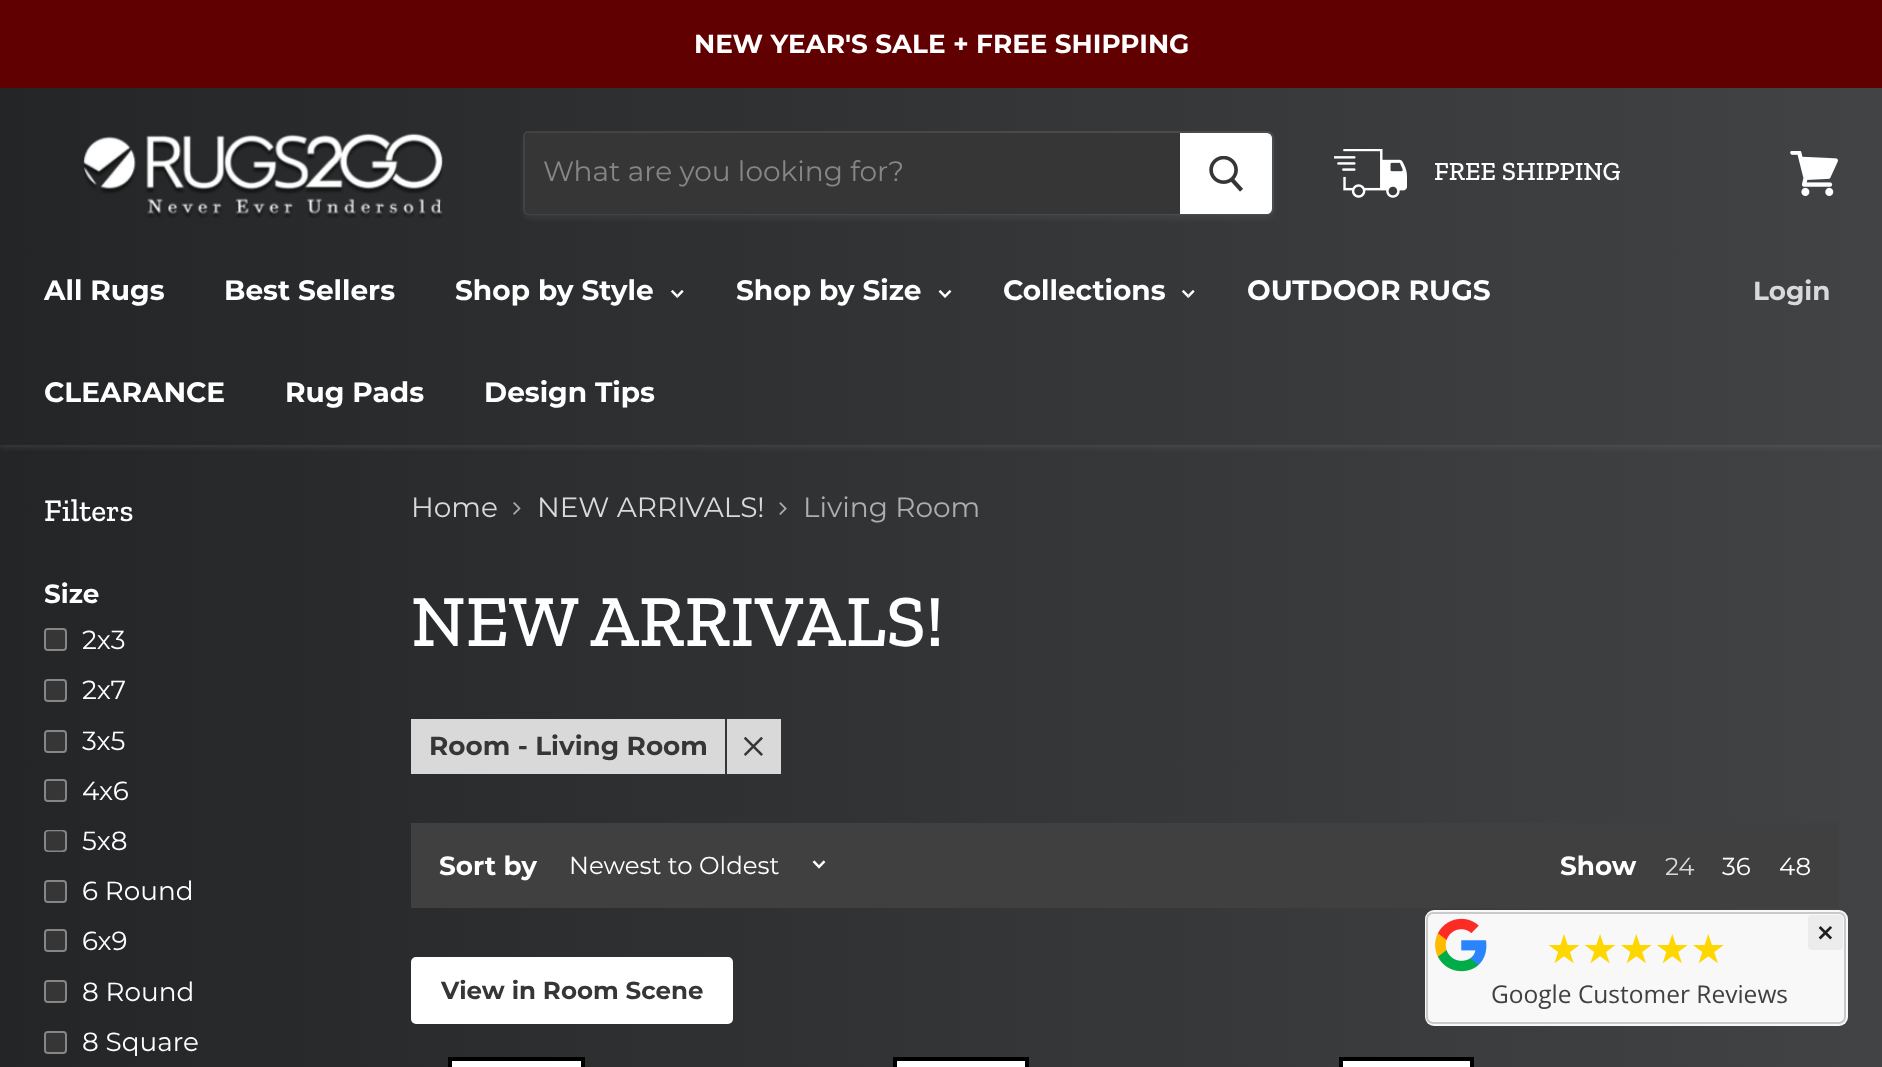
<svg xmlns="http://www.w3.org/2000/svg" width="1882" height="1067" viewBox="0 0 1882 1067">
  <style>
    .t1 { font: bold 26.25px Montserrat; fill: #fff; }
    .t2 { font: 28px Montserrat; fill: #868686; }
    .t3 { font: 500 26.25px Zilla Slab; fill: #fff; }
    .t4 { font: bold 28px Montserrat; fill: #fff; }
    .t5 { font: bold 26.25px Montserrat; fill: #d9d9d9; }
    .t6 { font: 500 31.5px Zilla Slab; fill: #fff; }
    .t7 { font: 26.25px Montserrat; fill: #fff; }
    .t8 { font: 28px Montserrat; fill: #d9d9d9; }
    .t9 { font: 28px Montserrat; fill: #adadae; }
    .t10 { font: 500 73.5px Zilla Slab; fill: #fff; }
    .t11 { font: bold 26.25px Montserrat; fill: #363636; }
    .t12 { font: 24.5px Montserrat; fill: #fff; }
    .t13 { font: 24.5px Montserrat; fill: #d9d9d9; }
    .t14 { font: bold 24.5px Montserrat; fill: #363636; }
    .t15 { font: 40.25px DejaVu Sans; fill: #ffd700; }
    .t16 { font: 24.5px Open Sans; fill: #404040; }
    .t17 { font: bold 28px Open Sans; fill: #1f1f1f; }
  </style>
  <defs>
    <linearGradient id="g1" gradientUnits="userSpaceOnUse" x1="0" y1="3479" x2="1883" y2="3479"><stop offset="0" stop-color="#232526"/><stop offset="1" stop-color="#414345"/></linearGradient>
    <linearGradient id="g2" gradientUnits="userSpaceOnUse" x1="0" y1="222" x2="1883" y2="222"><stop offset="0" stop-color="#232526"/><stop offset="1" stop-color="#414345"/></linearGradient>
    <clipPath id="clip1"><path d="M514 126H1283V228H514ZM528 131H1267C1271 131 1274 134 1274 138V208C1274 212 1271 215 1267 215H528C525 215 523 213 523 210V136C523 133 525 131 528 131Z" clip-rule="evenodd"/></clipPath>
  </defs>
  <rect width="100%" height="100%" fill="#fff"/>
  <rect x="0" y="445" width="1882" height="622" fill="url(#g1)"/>
  <rect x="0" y="2" width="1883" height="444" fill="#9a9a9a40" filter="blur(3.5px)"/>
  <rect x="0" y="88" width="1882" height="357" fill="url(#g2)"/>
  <rect x="0" y="0" width="1882" height="88" fill="#610000"/>
  <text x="694" y="53" class="t1">NEW YEAR'S SALE + FREE SHIPPING</text>
  <image x="83" y="133" width="360" height="85" href="images/1.png"/>
  <g clip-path="url(#clip1)">
    <rect x="523" y="135" width="751" height="84" rx="7" fill="#9a9a9a1c" filter="blur(2.5px)"/>
  </g>
  <path d="M528 132H1267C1270.5 132 1273 134.5 1273 138V208C1273 211.5 1270.5 214 1267 214H528C526 214 524 212 524 210V136C524 134 526 132 528 132Z" fill="none" stroke="#9a9a9a33" stroke-width="2"/>
  <path d="M530 133H1180V214H530C527 214 525 212 525 209V138C525 135 527 133 530 133Z" fill="#363636"/>
  <text x="543" y="181" class="t2">What are you looking for?</text>
  <path d="M1181 134H1267C1269 134 1271 136 1271 138V209C1271 211 1269 213 1267 213H1181Z" fill="#fff" stroke="#fff" stroke-width="2"/>
  <image x="1209" y="156" width="34" height="36" href="images/2.png"/>
  <image x="1334" y="149" width="73" height="49" href="images/3.png"/>
  <text x="1434" y="180" class="t3">FREE SHIPPING</text>
  <image x="1790" y="151" width="48" height="45" href="images/4.png"/>
  <text x="44" y="300" class="t4">All Rugs</text>
  <text x="224" y="300" class="t4">Best Sellers</text>
  <text x="455" y="300" class="t4">Shop by Style</text>
  <image x="670" y="289" width="14" height="10" href="images/5.png"/>
  <text x="736" y="300" class="t4">Shop by Size</text>
  <image x="938" y="289" width="14" height="9" href="images/6.png"/>
  <text x="1003" y="300" class="t4">Collections</text>
  <image x="1181" y="289" width="14" height="10" href="images/7.png"/>
  <text x="1247" y="300" class="t4">OUTDOOR RUGS</text>
  <text x="44" y="402" class="t4">CLEARANCE</text>
  <text x="285" y="402" class="t4">Rug Pads</text>
  <text x="484" y="402" class="t4">Design Tips</text>
  <text x="1753" y="300" class="t5">Login</text>
  <text x="44" y="521" class="t6">Filters</text>
  <text x="44" y="603" class="t1">Size</text>
  <rect x="44" y="628" width="23" height="23" rx="4" fill="#363636"/>
  <rect x="45" y="629" width="21" height="21" rx="3" fill="none" stroke="#ffffff66" stroke-width="2"/>
  <image x="46" y="630" width="18" height="19" href="images/8.png"/>
  <text x="82" y="649" class="t7">2x3</text>
  <rect x="44" y="679" width="23" height="23" rx="4" fill="#363636"/>
  <rect x="45" y="680" width="21" height="21" rx="3" fill="none" stroke="#ffffff66" stroke-width="2"/>
  <image x="46" y="681" width="18" height="19" href="images/9.png"/>
  <text x="82" y="699" class="t7">2x7</text>
  <rect x="44" y="730" width="23" height="23" rx="4" fill="#363636"/>
  <rect x="45" y="731" width="21" height="21" rx="3" fill="none" stroke="#ffffff66" stroke-width="2"/>
  <image x="46" y="732" width="19" height="19" href="images/10.png"/>
  <text x="82" y="750" class="t7">3x5</text>
  <rect x="44" y="779" width="23" height="23" rx="4" fill="#363636"/>
  <rect x="45" y="780" width="21" height="21" rx="3" fill="none" stroke="#ffffff66" stroke-width="2"/>
  <image x="46" y="781" width="19" height="19" href="images/10.png"/>
  <text x="82" y="800" class="t7">4x6</text>
  <rect x="44" y="830" width="23" height="22" rx="4" fill="#363636"/>
  <rect x="45" y="831" width="21" height="20" rx="3" fill="none" stroke="#ffffff66" stroke-width="2"/>
  <image x="46" y="831" width="19" height="20" href="images/11.png"/>
  <text x="82" y="850" class="t7">5x8</text>
  <rect x="44" y="880" width="23" height="23" rx="4" fill="#363636"/>
  <rect x="45" y="881" width="21" height="21" rx="3" fill="none" stroke="#ffffff66" stroke-width="2"/>
  <image x="46" y="882" width="18" height="19" href="images/8.png"/>
  <text x="82" y="900" class="t7">6 Round</text>
  <rect x="44" y="929" width="23" height="23" rx="4" fill="#363636"/>
  <rect x="45" y="930" width="21" height="21" rx="3" fill="none" stroke="#ffffff66" stroke-width="2"/>
  <image x="46" y="931" width="18" height="19" href="images/8.png"/>
  <text x="82" y="950" class="t7">6x9</text>
  <rect x="44" y="980" width="23" height="23" rx="4" fill="#363636"/>
  <rect x="45" y="981" width="21" height="21" rx="3" fill="none" stroke="#ffffff66" stroke-width="2"/>
  <image x="46" y="982" width="18" height="19" href="images/9.png"/>
  <text x="82" y="1001" class="t7">8 Round</text>
  <rect x="44" y="1031" width="23" height="23" rx="4" fill="#363636"/>
  <rect x="45" y="1032" width="21" height="21" rx="3" fill="none" stroke="#ffffff66" stroke-width="2"/>
  <image x="46" y="1033" width="19" height="19" href="images/10.png"/>
  <text x="82" y="1051" class="t7">8 Square</text>
  <text x="411" y="517" class="t8">Home</text>
  <image x="513" y="502" width="8" height="13" href="images/12.png"/>
  <text x="537" y="517" class="t8">NEW ARRIVALS!</text>
  <image x="779" y="502" width="8" height="13" href="images/13.png"/>
  <text x="803" y="517" class="t9">Living Room</text>
  <text x="411" y="646" class="t10">NEW ARRIVALS!</text>
  <rect x="411" y="719" width="370" height="55" fill="#d9d9d9"/>
  <rect x="725" y="719" width="2" height="55" fill="#363636"/>
  <text x="429" y="755" class="t11">Room - Living Room</text>
  <image x="744" y="737" width="19" height="19" href="images/14.png"/>
  <rect x="411" y="823" width="1428" height="85" fill="#404040"/>
  <text x="439" y="875" class="t1">Sort by</text>
  <text x="569" y="874" class="t12">Newest to Oldest</text>
  <image x="812" y="860" width="14" height="9" href="images/15.png"/>
  <text x="1560" y="875" class="t1">Show</text>
  <text x="1665" y="875" class="t13">24</text>
  <text x="1722" y="875" class="t12">36</text>
  <text x="1779" y="875" class="t12">48</text>
  <rect x="412" y="958" width="320" height="65" rx="4" fill="#fff" stroke="#fff" stroke-width="2"/>
  <text x="441" y="999" class="t14">View in Room Scene</text>
  <rect x="450" y="1059" width="133" height="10" fill="#fff" stroke="#000" stroke-width="4"/>
  <rect x="895" y="1059" width="132" height="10" fill="#fff" stroke="#000" stroke-width="4"/>
  <rect x="1341" y="1059" width="131" height="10" fill="#fff" stroke="#000" stroke-width="4"/>
  <rect x="1425" y="910" width="423" height="116" rx="9" fill="#f8f8f9"/>
  <rect x="1427" y="913" width="418" height="110" rx="6" fill="none" stroke="#c9c9cb" stroke-width="2"/>
  <image x="1435" y="918" width="52" height="54" href="images/16.png"/>
  <text x="1546" y="963" class="t15">★★★★★</text>
  <text x="1491" y="1003" class="t16">Google Customer Reviews</text>
  <rect x="1808" y="915" width="35" height="35" rx="4" fill="#ececed"/>
  <text x="1817" y="943" class="t17">×</text>
</svg>
